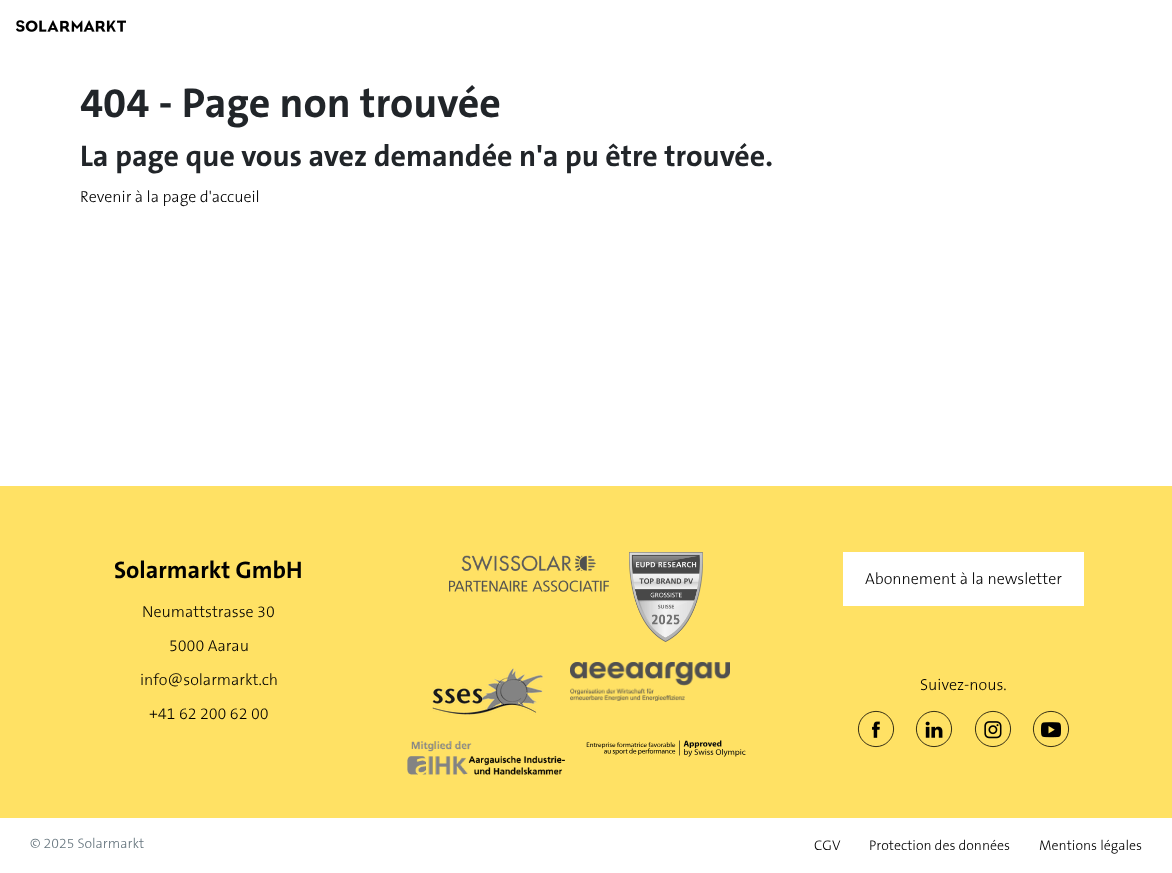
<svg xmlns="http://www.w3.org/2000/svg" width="1172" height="873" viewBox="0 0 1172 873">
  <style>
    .t1 { font: bold 42px 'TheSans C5'; fill: #212529; }
    .t2 { font: bold 30px 'TheSans C5'; fill: #212529; }
    .t3 { font: 300 16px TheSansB; fill: #000; }
    .t4 { font: bold 24px 'TheSans C5'; fill: #000; }
    .t5 { font: 300 14px TheSansB; fill: #66757e; }
    .t6 { font: 300 14px TheSansB; fill: #000; }
  </style>
  <rect width="100%" height="100%" fill="#fff"/>
  <image x="16" y="20" width="110" height="12" href="images/1.png"/>
  <text x="80" y="117" class="t1">404 - Page non trouvée</text>
  <text x="80" y="166" class="t2">La page que vous avez demandée n'a pu être trouvée.</text>
  <text x="80" y="202" class="t3">Revenir à la page d'accueil</text>
  <rect x="0" y="486" width="1172" height="332" fill="#ffe164"/>
  <text x="114" y="578" class="t4">Solarmarkt GmbH</text>
  <text x="142" y="617" class="t3">Neumattstrasse 30</text>
  <text x="169" y="651" class="t3">5000 Aarau</text>
  <text x="140" y="685" class="t3">info@solarmarkt.ch</text>
  <text x="149" y="719" class="t3">+41 62 200 62 00</text>
  <image x="449" y="555" width="160" height="37" href="images/2.png"/>
  <image x="629" y="552" width="74" height="90" href="images/3.png"/>
  <image x="432" y="668" width="111" height="47" href="images/4.png"/>
  <image x="570" y="662" width="160" height="39" href="images/5.png"/>
  <image x="407" y="741" width="158" height="34" href="images/6.png"/>
  <image x="586" y="740" width="160" height="17" href="images/7.png"/>
  <rect x="843" y="552" width="241" height="54" fill="#fff"/>
  <text x="865" y="584" class="t3">Abonnement à la newsletter</text>
  <text x="920" y="690" class="t3">Suivez-nous.</text>
  <circle cx="876" cy="729" r="17.6" fill="none" stroke="#000" stroke-width="0.8"/>
  <image x="872" y="721" width="8" height="17" href="images/8.png"/>
  <circle cx="934" cy="729" r="17.6" fill="none" stroke="#000" stroke-width="0.8"/>
  <image x="925" y="721" width="18" height="17" href="images/9.png"/>
  <circle cx="993" cy="729" r="17.6" fill="none" stroke="#000" stroke-width="0.8"/>
  <image x="984" y="721" width="18" height="18" href="images/10.png"/>
  <circle cx="1051" cy="729" r="17.6" fill="none" stroke="#000" stroke-width="0.8"/>
  <image x="1041" y="722" width="20" height="16" href="images/11.png"/>
  <text x="30" y="848" class="t5">© 2025 Solarmarkt</text>
  <text x="814" y="850" class="t6">CGV</text>
  <text x="869" y="850" class="t6">Protection des données</text>
  <text x="1039" y="850" class="t6">Mentions légales</text>
</svg>
